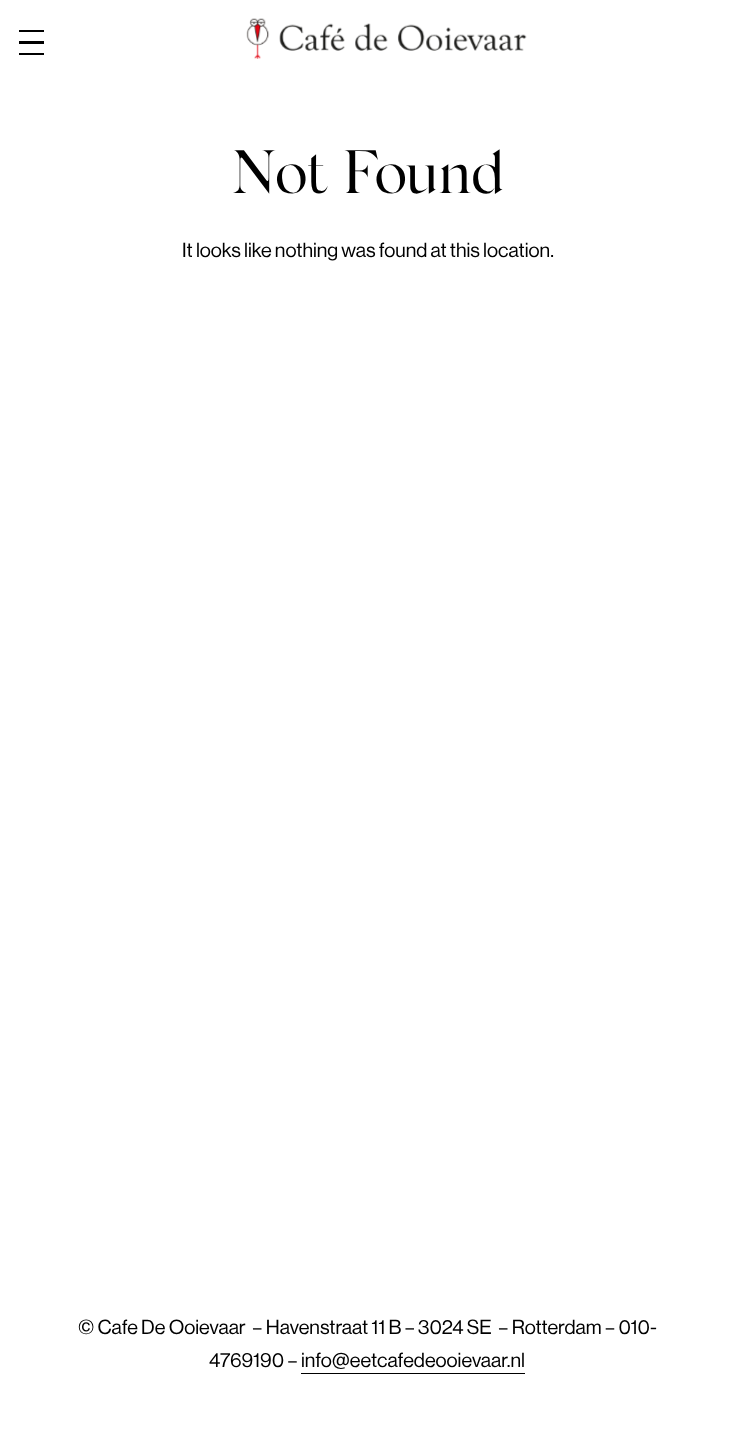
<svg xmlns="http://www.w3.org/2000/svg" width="734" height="1449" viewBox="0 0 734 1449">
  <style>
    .t1 { font: 61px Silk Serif; letter-spacing: -1px; fill: #000; }
    .t2 { font: 20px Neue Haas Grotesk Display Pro; fill: #000; }
  </style>
  <rect width="100%" height="100%" fill="#fff"/>
  <rect x="19" y="41" width="25" height="3" fill="#000"/>
  <rect x="19" y="30" width="25" height="2" fill="#000"/>
  <rect x="19" y="53" width="25" height="2" fill="#000"/>
  <image x="246" y="18" width="281" height="41" href="images/1.png"/>
  <text x="232" y="193" class="t1">Not Found</text>
  <text x="182" y="257" class="t2">It looks like nothing was found at this location.</text>
  <text x="78" y="1334" class="t2" xml:space="preserve">© Cafe De Ooievaar  – Havenstraat 11 B – 3024 SE  – Rotterdam – 010-</text>
  <text x="209" y="1367" class="t2">4769190 – info@eetcafedeooievaar.nl</text>
  <rect x="301" y="1373" width="224" height="1" fill="#000"/>
</svg>
